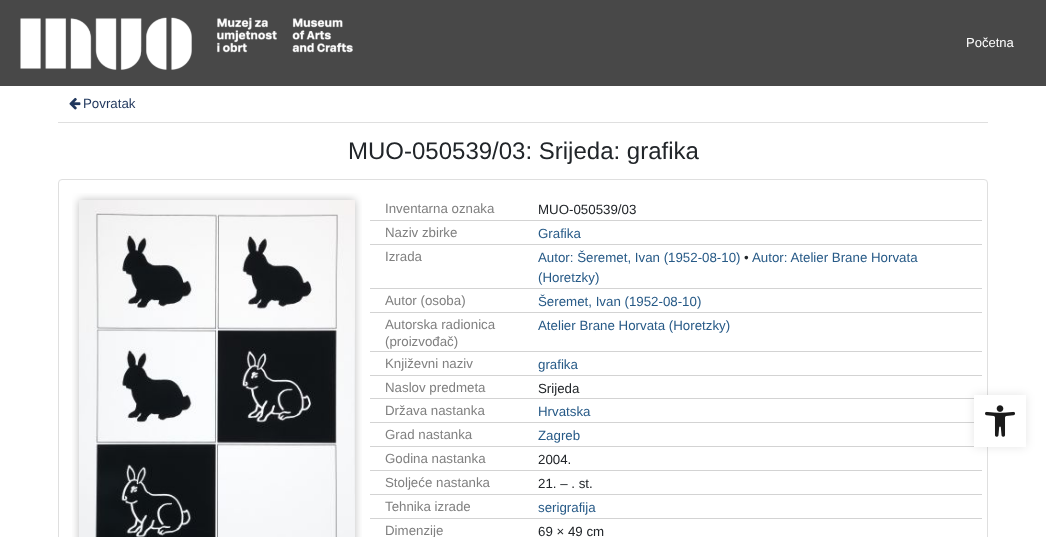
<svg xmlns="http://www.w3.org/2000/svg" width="1046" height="537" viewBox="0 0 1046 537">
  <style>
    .t1 { font: 13px Liberation Sans; fill: #fff; }
    .t2 { font: 13.3px Liberation Sans; fill: #1f365c; }
    .t3 { font: 24px Liberation Sans; fill: #212529; }
    .t4 { font: 13.3px Liberation Sans; fill: #808080; }
    .t5 { font: 13.3px Liberation Sans; fill: #212529; }
    .t6 { font: 13.3px Liberation Sans; fill: #275a87; }
  </style>
  <rect width="100%" height="100%" fill="#fff"/>
  <rect x="0" y="0" width="1046" height="86" fill="#484848"/>
  <image x="20" y="17" width="333" height="53" href="images/1.png"/>
  <text x="966" y="47" class="t1">Početna</text>
  <rect x="58" y="122" width="930" height="1" fill="#dfdfdf"/>
  <image x="69" y="97" width="12" height="13" href="images/2.png"/>
  <text x="83" y="108" class="t2">Povratak</text>
  <text x="348" y="159" class="t3">MUO-050539/03: Srijeda: grafika</text>
  <rect x="58.5" y="179.5" width="929" height="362" rx="3.5" fill="none" stroke="#dfdfdf"/>
  <image x="72" y="193" width="290" height="344" href="images/3.png"/>
  <rect x="370" y="220" width="612" height="1" fill="#d3d3d3"/>
  <text x="385" y="213" class="t4">Inventarna oznaka</text>
  <text x="538" y="214" class="t5">MUO-050539/03</text>
  <rect x="370" y="244" width="612" height="1" fill="#d3d3d3"/>
  <text x="385" y="237" class="t4">Naziv zbirke</text>
  <text x="538" y="238" class="t6">Grafika</text>
  <rect x="370" y="288" width="612" height="1" fill="#d3d3d3"/>
  <text x="385" y="261" class="t4">Izrada</text>
  <text x="538" y="262" class="t6">Autor: Šeremet, Ivan (1952-08-10)</text>
  <text x="744" y="262" class="t5">•</text>
  <text x="752" y="262" class="t6">Autor: Atelier Brane Horvata</text>
  <text x="538" y="282" class="t6">(Horetzky)</text>
  <rect x="370" y="312" width="612" height="1" fill="#d3d3d3"/>
  <text x="385" y="305" class="t4">Autor (osoba)</text>
  <text x="538" y="306" class="t6">Šeremet, Ivan (1952-08-10)</text>
  <rect x="370" y="351" width="612" height="1" fill="#d3d3d3"/>
  <text x="385" y="329" class="t4">Autorska radionica</text>
  <text x="385" y="346" class="t4">(proizvođač)</text>
  <text x="538" y="330" class="t6">Atelier Brane Horvata (Horetzky)</text>
  <rect x="370" y="375" width="612" height="1" fill="#d3d3d3"/>
  <text x="385" y="368" class="t4">Književni naziv</text>
  <text x="538" y="369" class="t6">grafika</text>
  <rect x="370" y="398" width="612" height="1" fill="#d3d3d3"/>
  <text x="385" y="392" class="t4">Naslov predmeta</text>
  <text x="538" y="393" class="t5">Srijeda</text>
  <rect x="370" y="422" width="612" height="1" fill="#d3d3d3"/>
  <text x="385" y="415" class="t4">Država nastanka</text>
  <text x="538" y="416" class="t6">Hrvatska</text>
  <rect x="370" y="446" width="612" height="1" fill="#d3d3d3"/>
  <text x="385" y="439" class="t4">Grad nastanka</text>
  <text x="538" y="440" class="t6">Zagreb</text>
  <rect x="370" y="470" width="612" height="1" fill="#d3d3d3"/>
  <text x="385" y="463" class="t4">Godina nastanka</text>
  <text x="538" y="464" class="t5">2004.</text>
  <rect x="370" y="494" width="612" height="1" fill="#d3d3d3"/>
  <text x="385" y="487" class="t4">Stoljeće nastanka</text>
  <text x="538" y="488" class="t5">21. – . st.</text>
  <rect x="370" y="518" width="612" height="1" fill="#d3d3d3"/>
  <text x="385" y="511" class="t4">Tehnika izrade</text>
  <text x="538" y="512" class="t6">serigrafija</text>
  <text x="385" y="535" class="t4">Dimenzije</text>
  <text x="538" y="536" class="t5">69 × 49 cm</text>
  <rect x="974" y="395" width="52" height="52" fill="#0000001a" filter="blur(5px)"/>
  <rect x="974" y="395" width="52" height="52" fill="#fff"/>
  <image x="985" y="405" width="30" height="32" href="images/4.png"/>
</svg>
